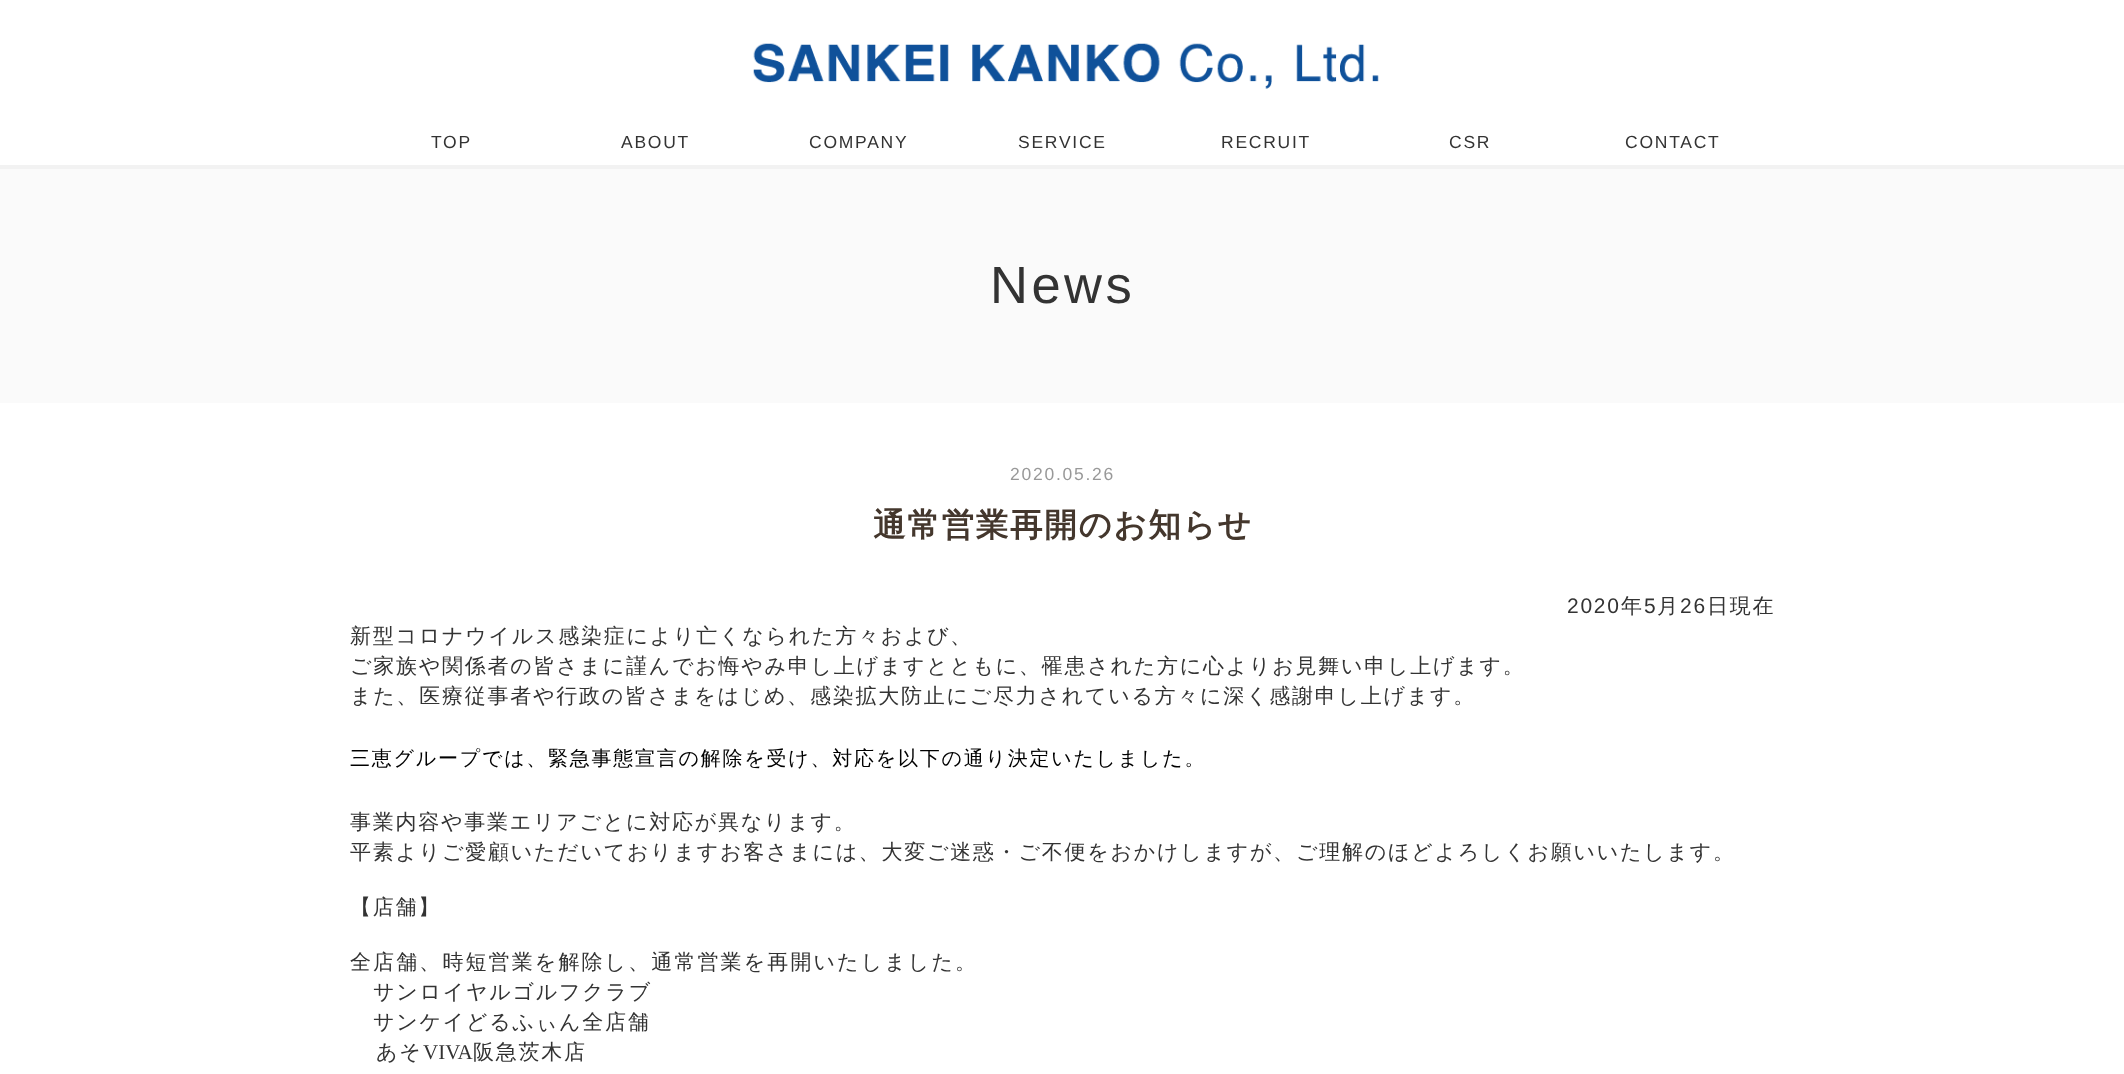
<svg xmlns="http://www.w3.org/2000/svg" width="2124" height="1074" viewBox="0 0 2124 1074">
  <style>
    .t1 { font: 17.5px Liberation Sans; letter-spacing: 1.75px; fill: #333; }
    .t2 { font: 52.5px Liberation Sans; letter-spacing: 3.5px; fill: #333; }
    .t3 { font: 17.5px Liberation Sans; letter-spacing: 1.75px; fill: #999; }
    .t4 { font: bold 32.5px WenQuanYi Zen Hei; letter-spacing: 1.75px; fill: #44372d; }
    .t5 { font: 21px Liberation Sans; letter-spacing: 1.75px; fill: #333; }
    .t6 { font: 500 21px WenQuanYi Zen Hei; letter-spacing: 1.75px; fill: #333; }
    .t7 { font: 500 20px WenQuanYi Zen Hei; letter-spacing: 1.75px; fill: #000; }
    .t8 { font: 500 21px WenQuanYi Zen Hei; letter-spacing: 2.1px; fill: #333; }
    .t9 { font: 21px Liberation Serif; fill: #333; }
  </style>
  <rect width="100%" height="100%" fill="#fff"/>
  <image x="753" y="43" width="626" height="46" href="images/1.png"/>
  <text x="431" y="148" class="t1">TOP</text>
  <text x="621" y="148" class="t1">ABOUT</text>
  <text x="809" y="148" class="t1">COMPANY</text>
  <text x="1018" y="148" class="t1">SERVICE</text>
  <text x="1221" y="148" class="t1">RECRUIT</text>
  <text x="1449" y="148" class="t1">CSR</text>
  <text x="1625" y="148" class="t1">CONTACT</text>
  <rect x="0" y="165" width="2124" height="4" fill="#f2f2f2"/>
  <rect x="0" y="169" width="2124" height="234" fill="#fafafa"/>
  <text x="990" y="303" class="t2">News</text>
  <text x="1010" y="480" class="t3">2020.05.26</text>
  <text x="873" y="536" class="t4">通常営業再開のお知らせ</text>
  <text x="1567" y="613" class="t5">2020</text>
  <text x="1621" y="613" class="t6">年</text>
  <text x="1644" y="613" class="t5">5</text>
  <text x="1657" y="613" class="t6">月</text>
  <text x="1680" y="613" class="t5">26</text>
  <text x="1707" y="613" class="t6">日現在</text>
  <text x="350" y="643" class="t6">新型コロナウイルス感染症により亡くなられた方々および、</text>
  <text x="350" y="673" class="t6">ご家族や関係者の皆さまに謹んでお悔やみ申し上げますとともに、罹患された方に心よりお見舞い申し上げます。</text>
  <text x="350" y="703" class="t6">また、医療従事者や行政の皆さまをはじめ、感染拡大防止にご尽力されている方々に深く感謝申し上げます。</text>
  <text x="350" y="765" class="t7">三恵グループでは、緊急事態宣言の解除を受け、対応を以下の通り決定いたしました。</text>
  <text x="350" y="829" class="t6">事業内容や事業エリアごとに対応が異なります。</text>
  <text x="350" y="859" class="t6">平素よりご愛顧いただいておりますお客さまには、大変ご迷惑・ご不便をおかけしますが、ご理解のほどよろしくお願いいたします。</text>
  <text x="350" y="914" class="t6">【店舗】</text>
  <text x="350" y="969" class="t8">全店舗、時短営業を解除し、通常営業を再開いたしました。</text>
  <text x="373" y="999" class="t6">サンロイヤルゴルフクラブ</text>
  <text x="373" y="1029" class="t6">サンケイどるふぃん全店舗</text>
  <text x="376" y="1059" class="t6">あそ</text>
  <text x="423" y="1059" class="t9">VIVA</text>
  <text x="473" y="1059" class="t6">阪急茨木店</text>
</svg>
